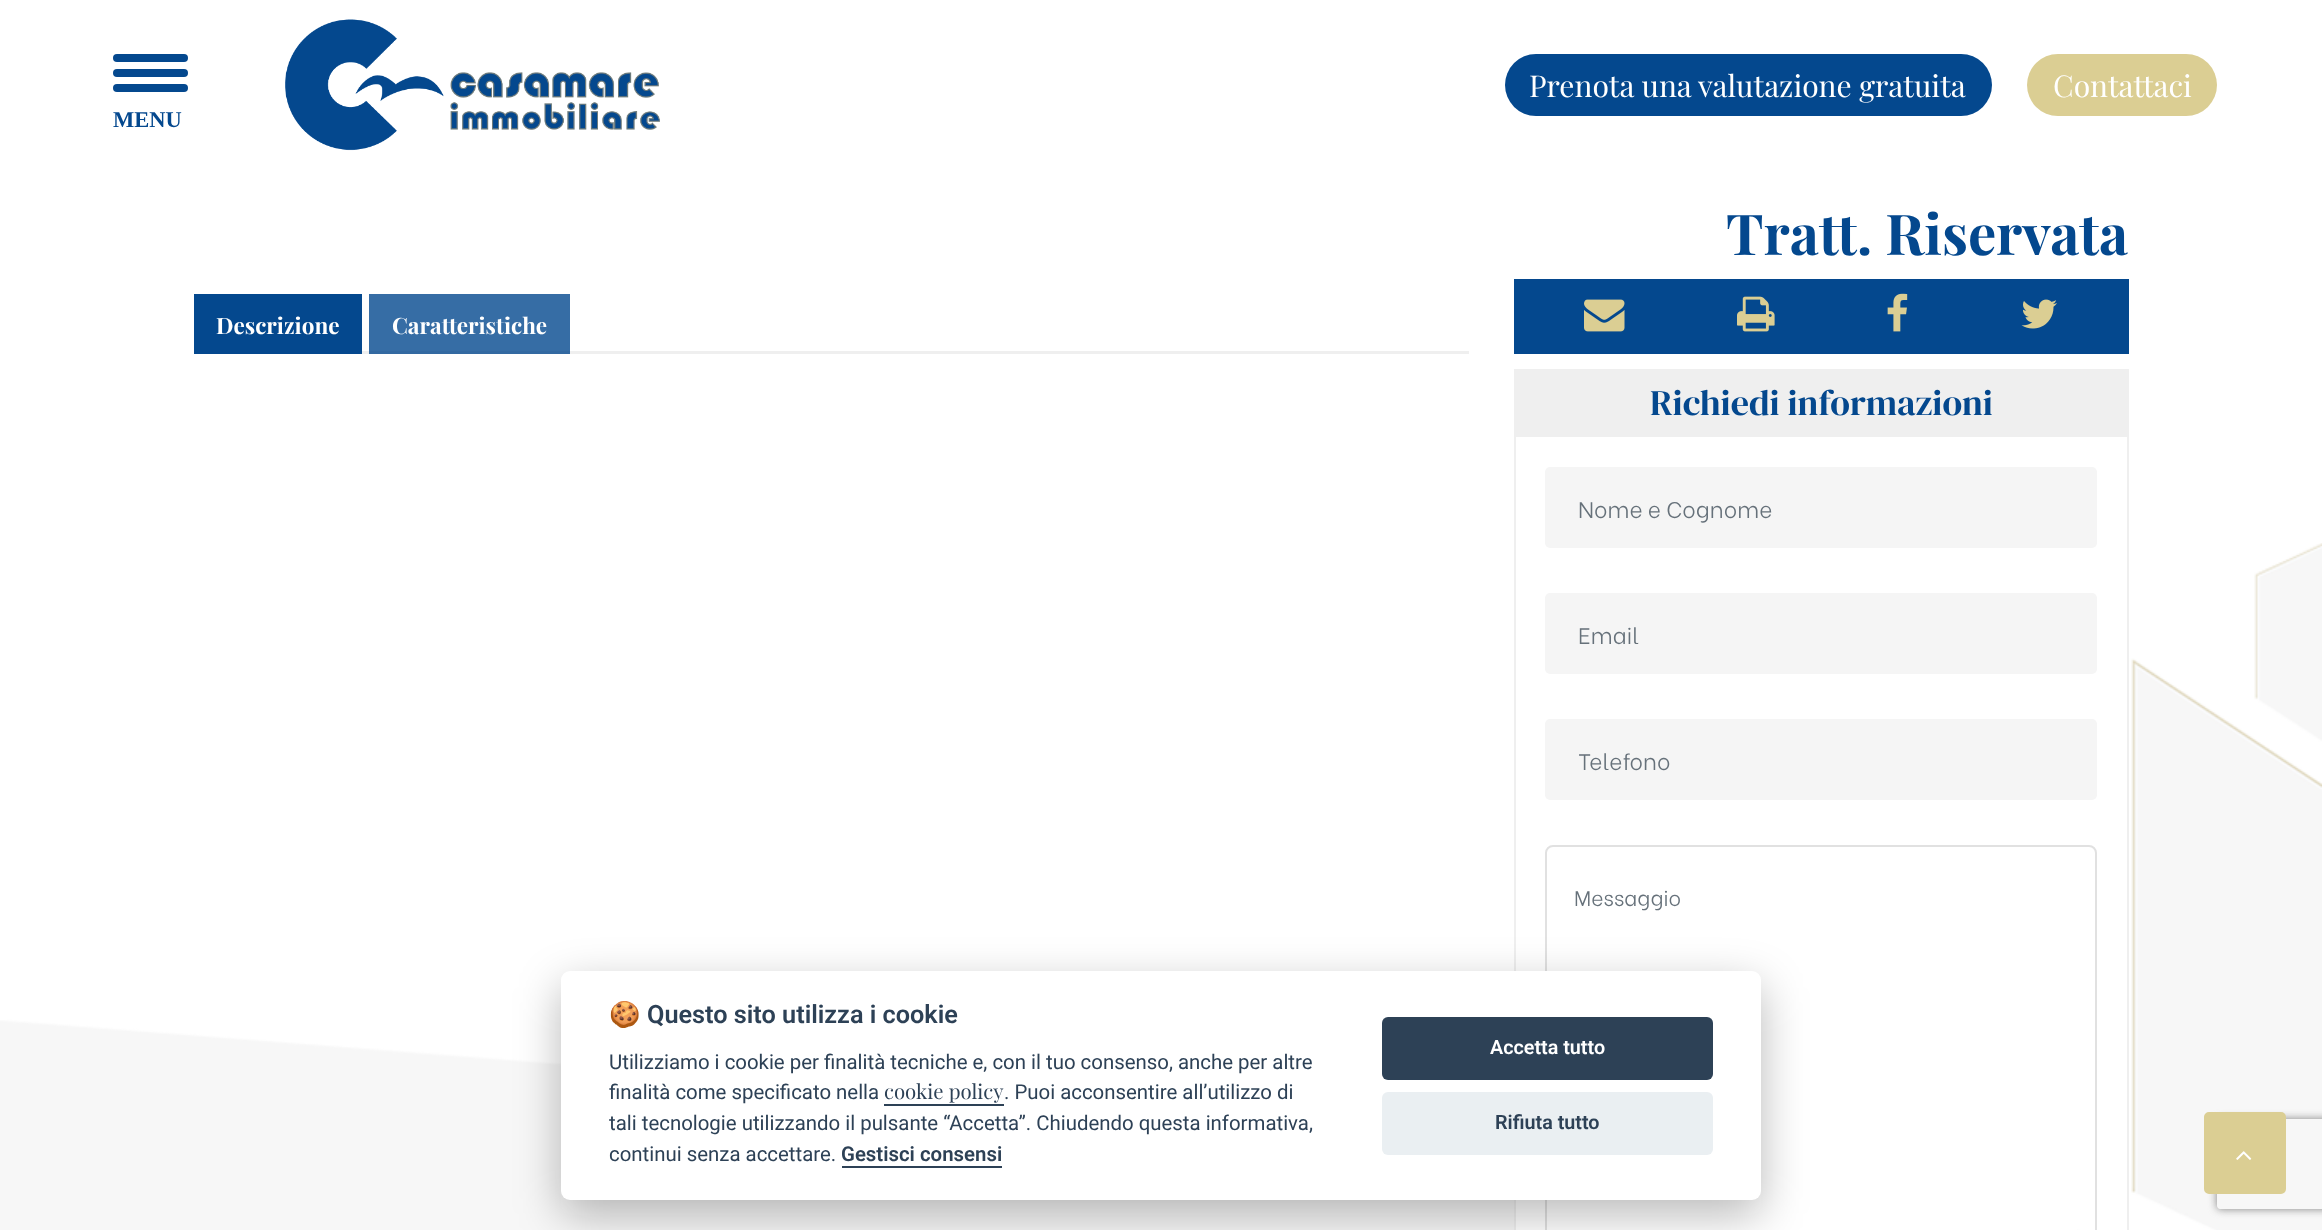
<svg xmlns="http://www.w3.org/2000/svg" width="2322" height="1230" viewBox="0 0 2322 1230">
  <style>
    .t1 { font: 30px Playfair Display; fill: #fff; }
    .t2 { font: bold 22.5px Liberation Serif; fill: #04488e; }
    .t3 { font: bold 56.25px Playfair Display; fill: #04488e; }
    .t4 { font: bold 22.5px Playfair Display; fill: #fff; }
    .t5 { font: 36px DM Serif Display; fill: #04488e; }
    .t6 { font: 300 22.5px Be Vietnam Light; fill: #66717a; }
    .t7 { font: 300 21px Be Vietnam Light; fill: #66717a; }
    .t8 { font: bold 25.25px Noto Color Emoji; fill: #2d4156; }
    .t9 { font: 600 25.25px Roboto; fill: #2d4156; }
    .t10 { font: 20.4px Roboto; fill: #2d4156; }
    .t11 { font: 20.4px Playfair Display; fill: #2d4156; }
    .t12 { font: 600 20.4px Roboto; fill: #2d4156; }
    .t13 { font: 600 19.75px Roboto; fill: #fff; }
    .t14 { font: 600 19.75px Roboto; fill: #2d4156; }
  </style>
  <defs>
    <clipPath id="clip1"><path d="M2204 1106H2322V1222H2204ZM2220 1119H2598C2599.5 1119 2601 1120.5 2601 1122V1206C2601 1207.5 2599.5 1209 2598 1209H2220C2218.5 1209 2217 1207.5 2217 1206V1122C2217 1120.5 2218.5 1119 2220 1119Z" clip-rule="evenodd"/></clipPath>
  </defs>
  <rect width="100%" height="100%" fill="#fff"/>
  <rect x="369" y="294" width="201" height="57" fill="#366da5"/>
  <image x="0" y="543" width="2322" height="687" href="images/1.png"/>
  <rect x="1505" y="54" width="487" height="62" rx="31" fill="#04488e"/>
  <text x="1529" y="97" class="t1">Prenota una valutazione gratuita</text>
  <rect x="2027" y="54" width="190" height="62" rx="31" fill="#dbce93"/>
  <text x="2053" y="97" class="t1">Contattaci</text>
  <rect x="113" y="54" width="75" height="8" rx="4" fill="#04488e"/>
  <rect x="113" y="69" width="75" height="8" rx="4" fill="#04488e"/>
  <rect x="113" y="84" width="75" height="8" rx="4" fill="#04488e"/>
  <text x="113" y="127" class="t2">MENU</text>
  <image x="285" y="19" width="375" height="132" href="images/2.png"/>
  <text x="1726" y="255" class="t3">Tratt. Riservata</text>
  <rect x="362" y="351" width="1107" height="3" fill="#efefef"/>
  <rect x="369" y="351" width="201" height="3" fill="#3369a1"/>
  <rect x="194" y="294" width="168" height="60" fill="#04488e"/>
  <text x="216" y="334" class="t4">Descrizione</text>
  <text x="392" y="334" class="t4">Caratteristiche</text>
  <rect x="1514" y="279" width="615" height="75" fill="#04488e"/>
  <image x="1584" y="299" width="41" height="33" href="images/3.png"/>
  <image x="1737" y="296" width="38" height="36" href="images/4.png"/>
  <image x="1887" y="293" width="21" height="39" href="images/5.png"/>
  <image x="2021" y="299" width="36" height="30" href="images/6.png"/>
  <rect x="1514" y="369" width="615" height="66" fill="#efefef"/>
  <text x="1650" y="415" class="t5">Richiedi informazioni</text>
  <rect x="1516" y="866" width="561" height="364" fill="#fff"/>
  <rect x="1515" y="436" width="613" height="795" fill="none" stroke="#efefef" stroke-width="2"/>
  <rect x="1545" y="467" width="552" height="81" rx="5" fill="#f5f5f5"/>
  <text x="1578" y="518" class="t6">Nome e Cognome</text>
  <rect x="1545" y="593" width="552" height="81" rx="5" fill="#f5f5f5"/>
  <text x="1578" y="644" class="t6">Email</text>
  <rect x="1545" y="719" width="552" height="81" rx="5" fill="#f5f5f5"/>
  <text x="1578" y="770" class="t6">Telefono</text>
  <rect x="1546" y="846" width="550" height="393" rx="7" fill="none" stroke="#e1e1e1" stroke-width="2"/>
  <text x="1574" y="906" class="t7">Messaggio</text>
  <rect x="561" y="986" width="1200" height="229" rx="9" fill="#02020347" filter="blur(22.5px)"/>
  <rect x="561" y="971" width="1200" height="229" rx="9" fill="#fff"/>
  <text x="609" y="1023" class="t8">🍪</text>
  <text x="647" y="1023" class="t9">Questo sito utilizza i cookie</text>
  <text x="609" y="1069" class="t10">Utilizziamo i cookie per finalità tecniche e, con il tuo consenso, anche per altre</text>
  <text x="609" y="1099" class="t10">finalità come specificato nella</text>
  <text x="884" y="1099" class="t11">cookie policy</text>
  <rect x="884" y="1104" width="120" height="2" fill="#2d4156"/>
  <text x="1004" y="1099" class="t10">. Puoi acconsentire all’utilizzo di</text>
  <text x="609" y="1130" class="t10">tali tecnologie utilizzando il pulsante “Accetta”. Chiudendo questa informativa,</text>
  <text x="609" y="1161" class="t10">continui senza accettare.</text>
  <text x="841" y="1161" class="t12">Gestisci consensi</text>
  <rect x="842" y="1166" width="160" height="2" fill="#2d4156"/>
  <rect x="1382" y="1017" width="331" height="63" rx="6" fill="#2d4156"/>
  <text x="1490" y="1054" class="t13">Accetta tutto</text>
  <rect x="1382" y="1092" width="331" height="63" rx="6" fill="#eaeff2"/>
  <text x="1495" y="1129" class="t14">Rifiuta tutto</text>
  <g clip-path="url(#clip1)">
    <rect x="2217" y="1119" width="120" height="90" rx="3" fill="#808080" filter="blur(4px)"/>
  </g>
  <rect x="2205" y="1113" width="80" height="80" rx="4" fill="#dbce93" stroke="#dbce93" stroke-width="2"/>
  <image x="2236" y="1151" width="16" height="9" href="images/7.png"/>
</svg>
